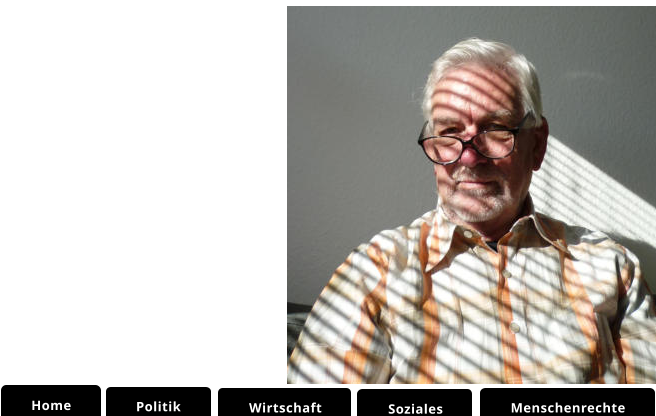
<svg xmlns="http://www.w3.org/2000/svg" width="656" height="416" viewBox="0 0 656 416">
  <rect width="100%" height="100%" fill="#fff"/>
  <image x="287" y="6" width="369" height="378" href="images/1.png"/>
  <image x="1" y="385" width="100" height="31" href="images/2.png"/>
  <image x="106" y="387" width="105" height="29" href="images/3.png"/>
  <image x="218" y="388" width="133" height="28" href="images/4.png"/>
  <image x="357" y="389" width="115" height="27" href="images/5.png"/>
  <image x="480" y="388" width="175" height="28" href="images/6.png"/>
</svg>
